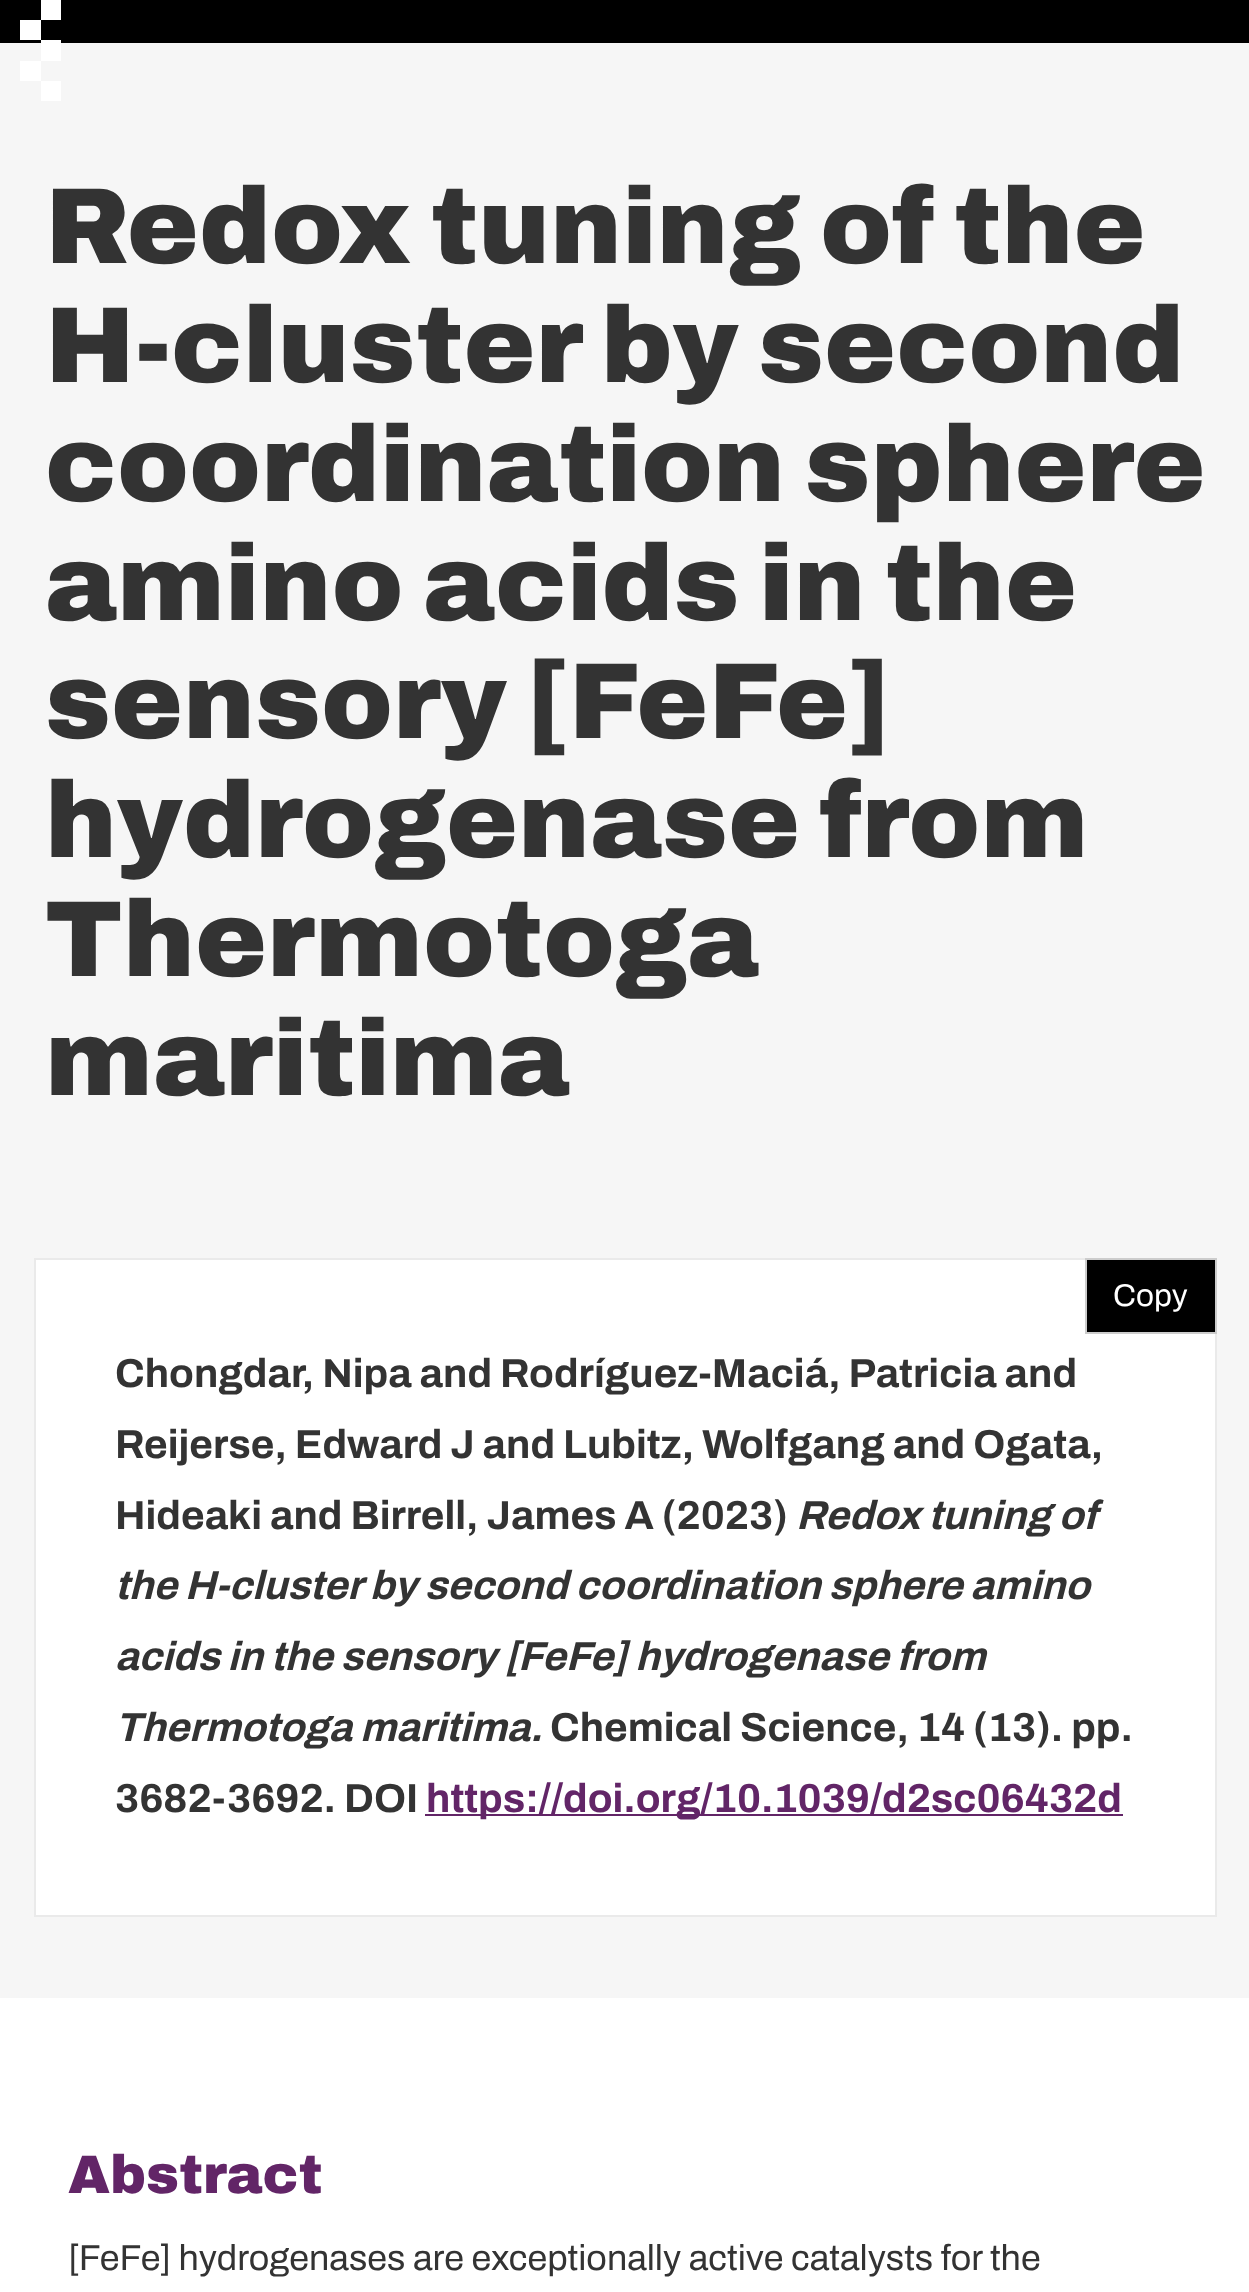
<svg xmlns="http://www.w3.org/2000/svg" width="1249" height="2292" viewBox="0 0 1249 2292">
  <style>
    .t1 { font: 900 108px Archivo; fill: #333; }
    .t2 { font: 31.5px Archivo; fill: #fff; }
    .t3 { font: bold 40.5px Archivo; fill: #333; }
    .t4 { font: italic bold 40.5px Archivo; fill: #333; }
    .t5 { font: bold 40.5px Archivo; fill: #622567; }
    .t6 { font: 900 54px Archivo; fill: #622567; }
    .t7 { font: 36px Archivo; fill: #333; }
  </style>
  <rect width="100%" height="100%" fill="#fff"/>
  <rect x="0" y="0" width="1249" height="43" fill="#000"/>
  <rect x="41" y="0" width="20" height="20" fill="#fff"/>
  <rect x="20" y="20" width="21" height="20" fill="#fff"/>
  <rect x="0" y="43" width="1249" height="1955" fill="#f6f6f6"/>
  <rect x="41" y="40" width="20" height="21" fill="#fff"/>
  <rect x="20" y="61" width="21" height="20" fill="#fff"/>
  <rect x="41" y="81" width="20" height="20" fill="#fff"/>
  <text x="45" y="263" class="t1">Redox tuning of the</text>
  <text x="45" y="382" class="t1">H-cluster by second</text>
  <text x="45" y="501" class="t1">coordination sphere</text>
  <text x="45" y="620" class="t1">amino acids in the</text>
  <text x="45" y="738" class="t1">sensory [FeFe]</text>
  <text x="45" y="857" class="t1">hydrogenase from</text>
  <text x="45" y="976" class="t1">Thermotoga</text>
  <text x="45" y="1095" class="t1">maritima</text>
  <rect x="35" y="1259" width="1181" height="657" fill="#fff" stroke="#eaeaea" stroke-width="2"/>
  <rect x="1086" y="1259" width="130" height="74" fill="#000" stroke="#ccc" stroke-width="2"/>
  <text x="1113" y="1306" class="t2">Copy</text>
  <text x="115" y="1387" class="t3">Chongdar, Nipa and Rodríguez-Maciá, Patricia and</text>
  <text x="115" y="1458" class="t3">Reijerse, Edward J and Lubitz, Wolfgang and Ogata,</text>
  <text x="115" y="1529" class="t3">Hideaki and Birrell, James A (2023)</text>
  <text x="796" y="1529" class="t4">Redox tuning of</text>
  <text x="115" y="1599" class="t4">the H-cluster by second coordination sphere amino</text>
  <text x="115" y="1670" class="t4">acids in the sensory [FeFe] hydrogenase from</text>
  <text x="115" y="1741" class="t4">Thermotoga maritima.</text>
  <text x="550" y="1741" class="t3">Chemical Science, 14 (13). pp.</text>
  <text x="115" y="1812" class="t3">3682-3692. DOI</text>
  <rect x="425" y="1814" width="698" height="2" fill="#622567"/>
  <text x="426" y="1812" class="t5">https://doi.org/10.1039/d2sc06432d</text>
  <text x="68" y="2193" class="t6">Abstract</text>
  <text x="68" y="2270" class="t7">[FeFe] hydrogenases are exceptionally active catalysts for the</text>
</svg>
